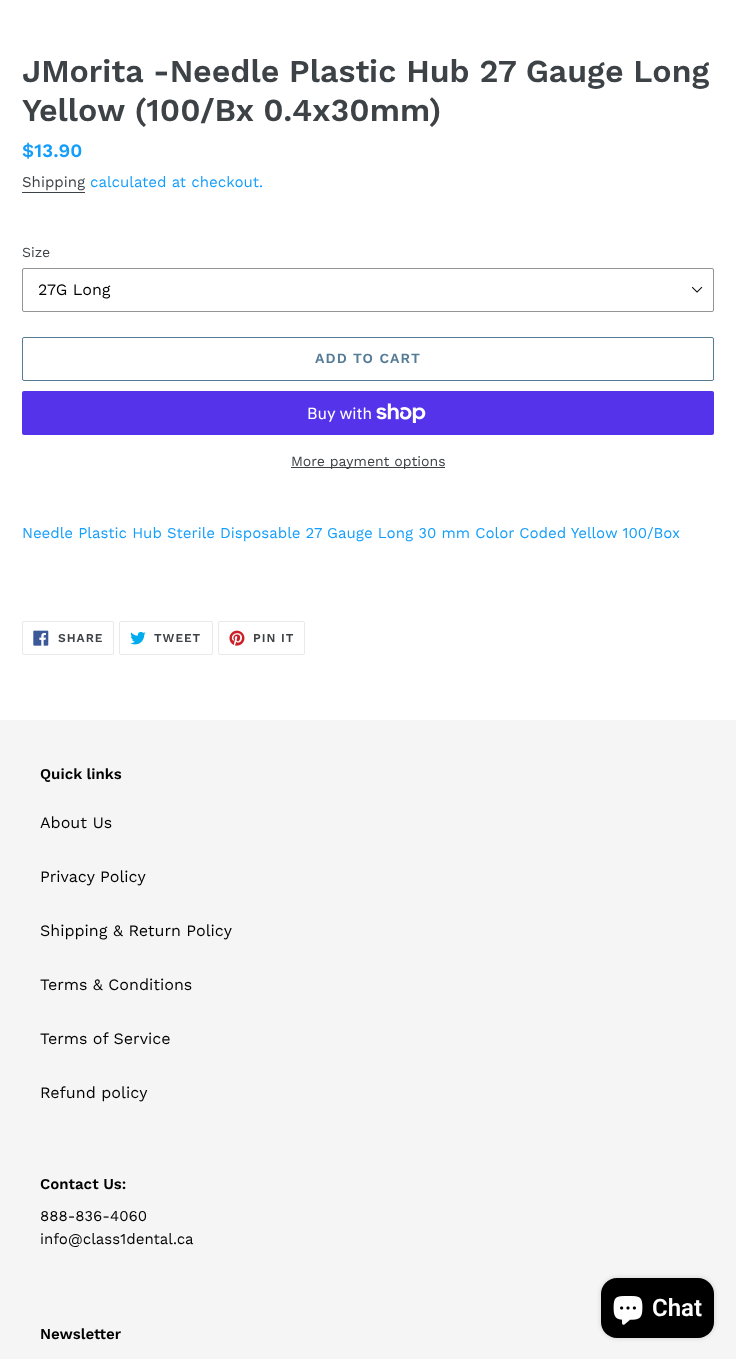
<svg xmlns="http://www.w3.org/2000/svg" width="736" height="1359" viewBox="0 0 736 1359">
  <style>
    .t1 { font: 600 32px Work Sans; fill: #3d4246; }
    .t2 { font: 600 19px Work Sans; fill: #149efb; }
    .t3 { font: 15px Work Sans; fill: #3d4246; }
    .t4 { font: 15px Work Sans; fill: #149efb; }
    .t5 { font: 14px Work Sans; fill: #3d4246; }
    .t6 { font: 16px Work Sans; fill: #000; }
    .t7 { font: 600 14px Work Sans; letter-spacing: 1.1px; fill: #557b97; }
    .t8 { font: 16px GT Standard; fill: #fff; }
    .t9 { font: 600 12px Work Sans; letter-spacing: 1px; fill: #3d4246; }
    .t10 { font: 600 15px Work Sans; fill: #000; }
    .t11 { font: 15px Work Sans; fill: #000; }
    .t12 { font: 600 24px Roboto; fill: #fff; }
  </style>
  <rect width="100%" height="100%" fill="#fff"/>
  <text x="22" y="82" class="t1">JMorita -Needle Plastic Hub 27 Gauge Long</text>
  <text x="22" y="121" class="t1">Yellow (100/Bx 0.4x30mm)</text>
  <text x="22" y="157" class="t2">$13.90</text>
  <text x="22" y="187" class="t3">Shipping</text>
  <rect x="22" y="192" width="63" height="1" fill="#3d4246"/>
  <text x="90" y="187" class="t4">calculated at checkout.</text>
  <text x="22" y="257" class="t5">Size</text>
  <image x="691" y="286" width="12" height="7" href="images/1.png"/>
  <rect x="22.5" y="268.5" width="691" height="43" rx="1.5" fill="none" stroke="#949494"/>
  <text x="38" y="295" class="t6">27G Long</text>
  <rect x="22.5" y="337.5" width="691" height="43" rx="1.5" fill="none" stroke="#557b97"/>
  <text x="315" y="363" class="t7">ADD TO CART</text>
  <rect x="22" y="391" width="692" height="44" rx="2" fill="#5433eb"/>
  <text x="307" y="419" class="t8">Buy with</text>
  <image x="376" y="403" width="50" height="20" href="images/2.png"/>
  <rect x="291" y="467" width="154" height="1" fill="#3d4246"/>
  <text x="291" y="466" class="t5">More payment options</text>
  <text x="22" y="538" class="t4">Needle Plastic Hub Sterile Disposable 27 Gauge Long 30 mm Color Coded Yellow 100/Box</text>
  <rect x="22.5" y="621.5" width="91" height="33" rx="1.5" fill="none" stroke="#e8e9eb"/>
  <image x="33" y="630" width="16" height="16" href="images/3.png"/>
  <text x="58" y="642" class="t9">SHARE</text>
  <rect x="119.5" y="621.5" width="93" height="33" rx="1.5" fill="none" stroke="#e8e9eb"/>
  <image x="130" y="631" width="16" height="14" href="images/4.png"/>
  <text x="154" y="642" class="t9">TWEET</text>
  <rect x="218.5" y="621.5" width="86" height="33" rx="1.5" fill="none" stroke="#e8e9eb"/>
  <image x="229" y="630" width="16" height="16" href="images/5.png"/>
  <text x="253" y="642" class="t9">PIN IT</text>
  <rect x="0" y="720" width="736" height="639" fill="#f5f5f5"/>
  <text x="40" y="779" class="t10">Quick links</text>
  <text x="40" y="828" class="t6">About Us</text>
  <text x="40" y="882" class="t6">Privacy Policy</text>
  <text x="40" y="936" class="t6">Shipping &amp; Return Policy</text>
  <text x="40" y="990" class="t6">Terms &amp; Conditions</text>
  <text x="40" y="1044" class="t6">Terms of Service</text>
  <text x="40" y="1098" class="t6">Refund policy</text>
  <text x="40" y="1189" class="t10">Contact Us:</text>
  <text x="40" y="1221" class="t11">888-836-4060</text>
  <text x="40" y="1244" class="t11">info@class1dental.ca</text>
  <text x="40" y="1339" class="t10">Newsletter</text>
  <rect x="601" y="1278" width="113" height="60" rx="16" fill="#00000026" filter="blur(2.5px)"/>
  <rect x="601" y="1278" width="113" height="60" rx="16" fill="#000"/>
  <image x="613" y="1296" width="30" height="29" href="images/6.png"/>
  <text x="652" y="1316" class="t12">Chat</text>
</svg>
